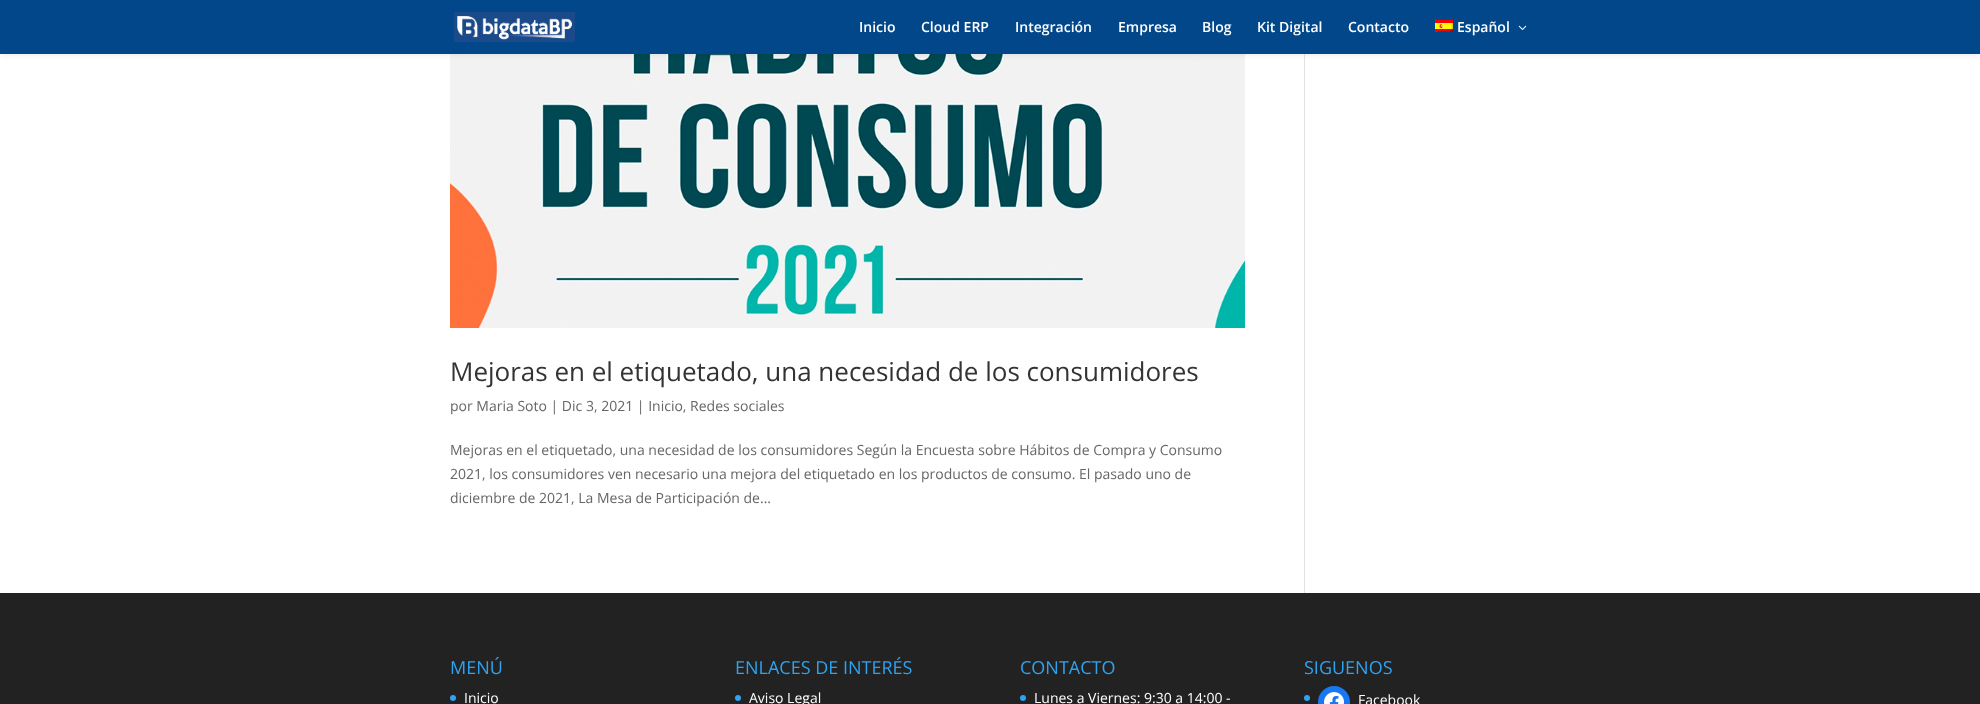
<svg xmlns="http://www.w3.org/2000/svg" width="1980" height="704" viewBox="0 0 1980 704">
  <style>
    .t1 { font: 600 14px Open Sans; fill: #fff; }
    .t2 { font: 26px Open Sans; fill: #333; }
    .t3 { font: 14px Open Sans; fill: #666; }
    .t4 { font: 18px Open Sans; fill: #2ea3f2; }
    .t5 { font: 14px Open Sans; fill: #fff; }
  </style>
  <rect width="100%" height="100%" fill="#fff"/>
  <image x="450" y="54" width="795" height="274" href="images/4.png"/>
  <rect x="1304" y="54" width="1" height="539" fill="#e2e2e2"/>
  <rect x="0" y="0" width="1980" height="54" fill="#0000001a" filter="blur(3.5px)"/>
  <rect x="0" y="0" width="1980" height="54" fill="#02478a"/>
  <image x="454" y="12" width="121" height="30" href="images/1.png"/>
  <text x="859" y="32" class="t1">Inicio</text>
  <text x="921" y="32" class="t1">Cloud ERP</text>
  <text x="1015" y="32" class="t1">Integración</text>
  <text x="1118" y="32" class="t1">Empresa</text>
  <text x="1202" y="32" class="t1">Blog</text>
  <text x="1257" y="32" class="t1">Kit Digital</text>
  <text x="1348" y="32" class="t1">Contacto</text>
  <image x="1435" y="20" width="18" height="12" href="images/2.png"/>
  <text x="1457" y="32" class="t1">Español</text>
  <image x="1518" y="25" width="9" height="5" href="images/3.png"/>
  <text x="450" y="381" class="t2">Mejoras en el etiquetado, una necesidad de los consumidores</text>
  <text x="450" y="411" class="t3">por Maria Soto | Dic 3, 2021 | Inicio, Redes sociales</text>
  <text x="450" y="455" class="t3">Mejoras en el etiquetado, una necesidad de los consumidores Según la Encuesta sobre Hábitos de Compra y Consumo</text>
  <text x="450" y="479" class="t3">2021, los consumidores ven necesario una mejora del etiquetado en los productos de consumo. El pasado uno de</text>
  <text x="450" y="503" class="t3">diciembre de 2021, La Mesa de Participación de...</text>
  <rect x="0" y="593" width="1980" height="111" fill="#222"/>
  <text x="450" y="674" class="t4">MENÚ</text>
  <circle cx="453" cy="698" r="3" fill="#2ea3f2"/>
  <text x="464" y="703" class="t5">Inicio</text>
  <text x="735" y="674" class="t4">ENLACES DE INTERÉS</text>
  <circle cx="738" cy="698" r="3" fill="#2ea3f2"/>
  <text x="749" y="703" class="t5">Aviso Legal</text>
  <text x="1020" y="674" class="t4">CONTACTO</text>
  <circle cx="1023" cy="698" r="3" fill="#2ea3f2"/>
  <text x="1034" y="703" class="t5">Lunes a Viernes: 9:30 a 14:00 -</text>
  <text x="1304" y="674" class="t4">SIGUENOS</text>
  <circle cx="1307" cy="698" r="3" fill="#2ea3f2"/>
  <circle cx="1334" cy="702" r="16" fill="#1877f2"/>
  <image x="1324" y="692" width="20" height="12" href="images/5.png"/>
  <text x="1358" y="705" class="t5">Facebook</text>
</svg>
